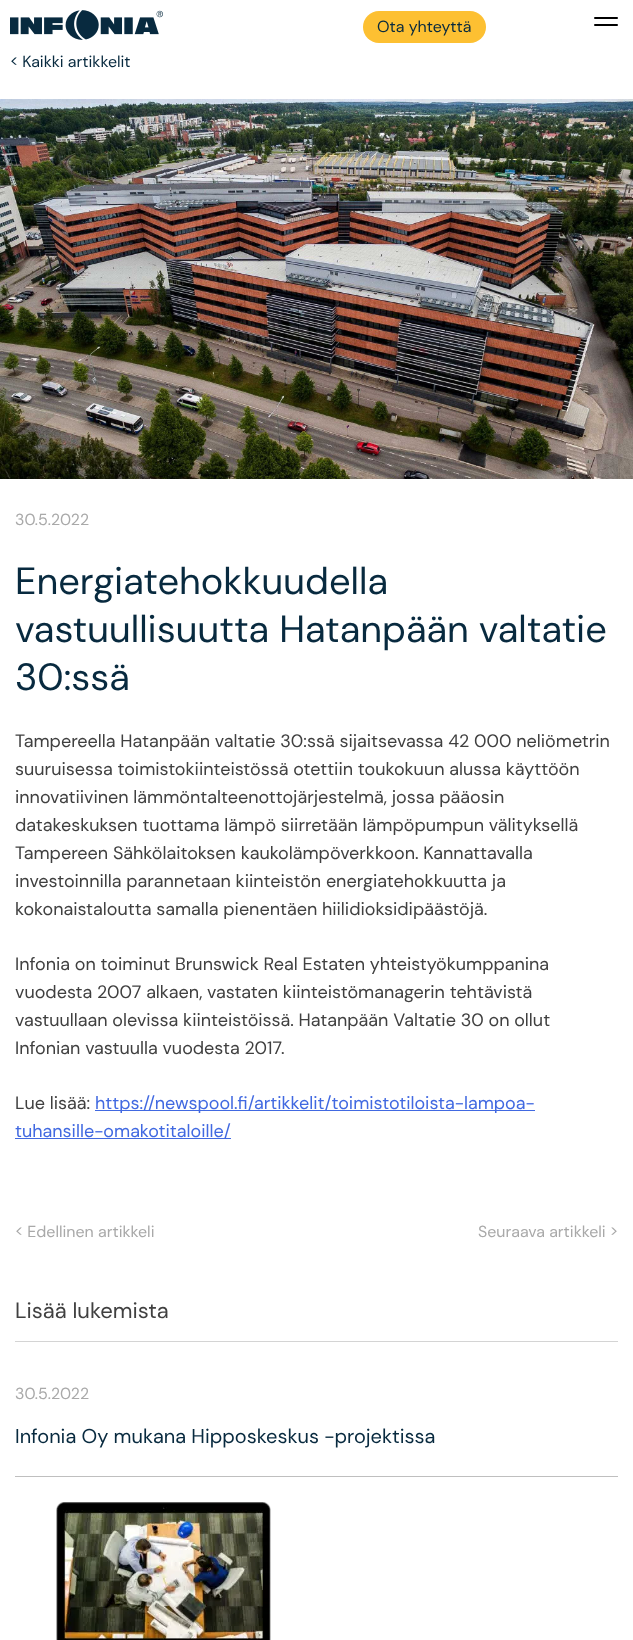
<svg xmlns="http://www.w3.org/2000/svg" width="633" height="1640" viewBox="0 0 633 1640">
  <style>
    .t1 { font: 16px DM Sans; fill: #082a3f; }
    .t2 { font: 16px DM Sans; fill: #a9a9a9; }
    .t3 { font: 38px DM Sans; fill: #082a3f; }
    .t4 { font: 18px DM Sans; fill: #404040; }
    .t5 { font: 18px DM Sans; fill: #4169e1; }
    .t6 { font: 22px DM Sans; fill: #404040; }
    .t7 { font: 20px DM Sans; fill: #082a3f; }
  </style>
  <rect width="100%" height="100%" fill="#fff"/>
  <image x="10" y="10" width="153" height="30" href="images/1.png"/>
  <rect x="363" y="11" width="123" height="32" rx="16" fill="#fdc032"/>
  <text x="377" y="32" class="t1">Ota yhteyttä</text>
  <rect x="594" y="17" width="24" height="2" rx="1" fill="#000"/>
  <rect x="594" y="24" width="24" height="2" rx="1" fill="#000"/>
  <text x="10" y="67" class="t1">&lt; Kaikki artikkelit</text>
  <image x="0" y="99" width="633" height="380" href="images/2.png"/>
  <text x="15" y="525" class="t2">30.5.2022</text>
  <text x="15" y="594" class="t3">Energiatehokkuudella</text>
  <text x="15" y="642" class="t3">vastuullisuutta Hatanpään valtatie</text>
  <text x="15" y="690" class="t3">30:ssä</text>
  <text x="15" y="747" class="t4">Tampereella Hatanpään valtatie 30:ssä sijaitsevassa 42 000 neliömetrin</text>
  <text x="15" y="775" class="t4">suuruisessa toimistokiinteistössä otettiin toukokuun alussa käyttöön</text>
  <text x="15" y="803" class="t4">innovatiivinen lämmöntalteenottojärjestelmä, jossa pääosin</text>
  <text x="15" y="831" class="t4">datakeskuksen tuottama lämpö siirretään lämpöpumpun välityksellä</text>
  <text x="15" y="859" class="t4">Tampereen Sähkölaitoksen kaukolämpöverkkoon. Kannattavalla</text>
  <text x="15" y="887" class="t4">investoinnilla parannetaan kiinteistön energiatehokkuutta ja</text>
  <text x="15" y="915" class="t4">kokonaistaloutta samalla pienentäen hiilidioksidipäästöjä.</text>
  <text x="15" y="970" class="t4">Infonia on toiminut Brunswick Real Estaten yhteistyökumppanina</text>
  <text x="15" y="998" class="t4">vuodesta 2007 alkaen, vastaten kiinteistömanagerin tehtävistä</text>
  <text x="15" y="1026" class="t4">vastuullaan olevissa kiinteistöissä. Hatanpään Valtatie 30 on ollut</text>
  <text x="15" y="1054" class="t4">Infonian vastuulla vuodesta 2017.</text>
  <text x="15" y="1109" class="t4">Lue lisää:</text>
  <rect x="95" y="1110" width="440" height="1" fill="#4169e1"/>
  <text x="95" y="1109" class="t5">https://newspool.fi/artikkelit/toimistotiloista-lampoa-</text>
  <rect x="15" y="1138" width="216" height="1" fill="#4169e1"/>
  <text x="15" y="1137" class="t5">tuhansille-omakotitaloille/</text>
  <text x="15" y="1237" class="t2">&lt; Edellinen artikkeli</text>
  <text x="478" y="1237" class="t2">Seuraava artikkeli &gt;</text>
  <text x="15" y="1318" class="t6">Lisää lukemista</text>
  <rect x="15" y="1341" width="603" height="1" fill="#d4d4d4"/>
  <text x="15" y="1399" class="t2">30.5.2022</text>
  <text x="15" y="1443" class="t7">Infonia Oy mukana Hipposkeskus -projektissa</text>
  <rect x="15" y="1476" width="603" height="1" fill="#bfbfbf"/>
  <image x="56" y="1502" width="215" height="138" href="images/3.png"/>
</svg>
